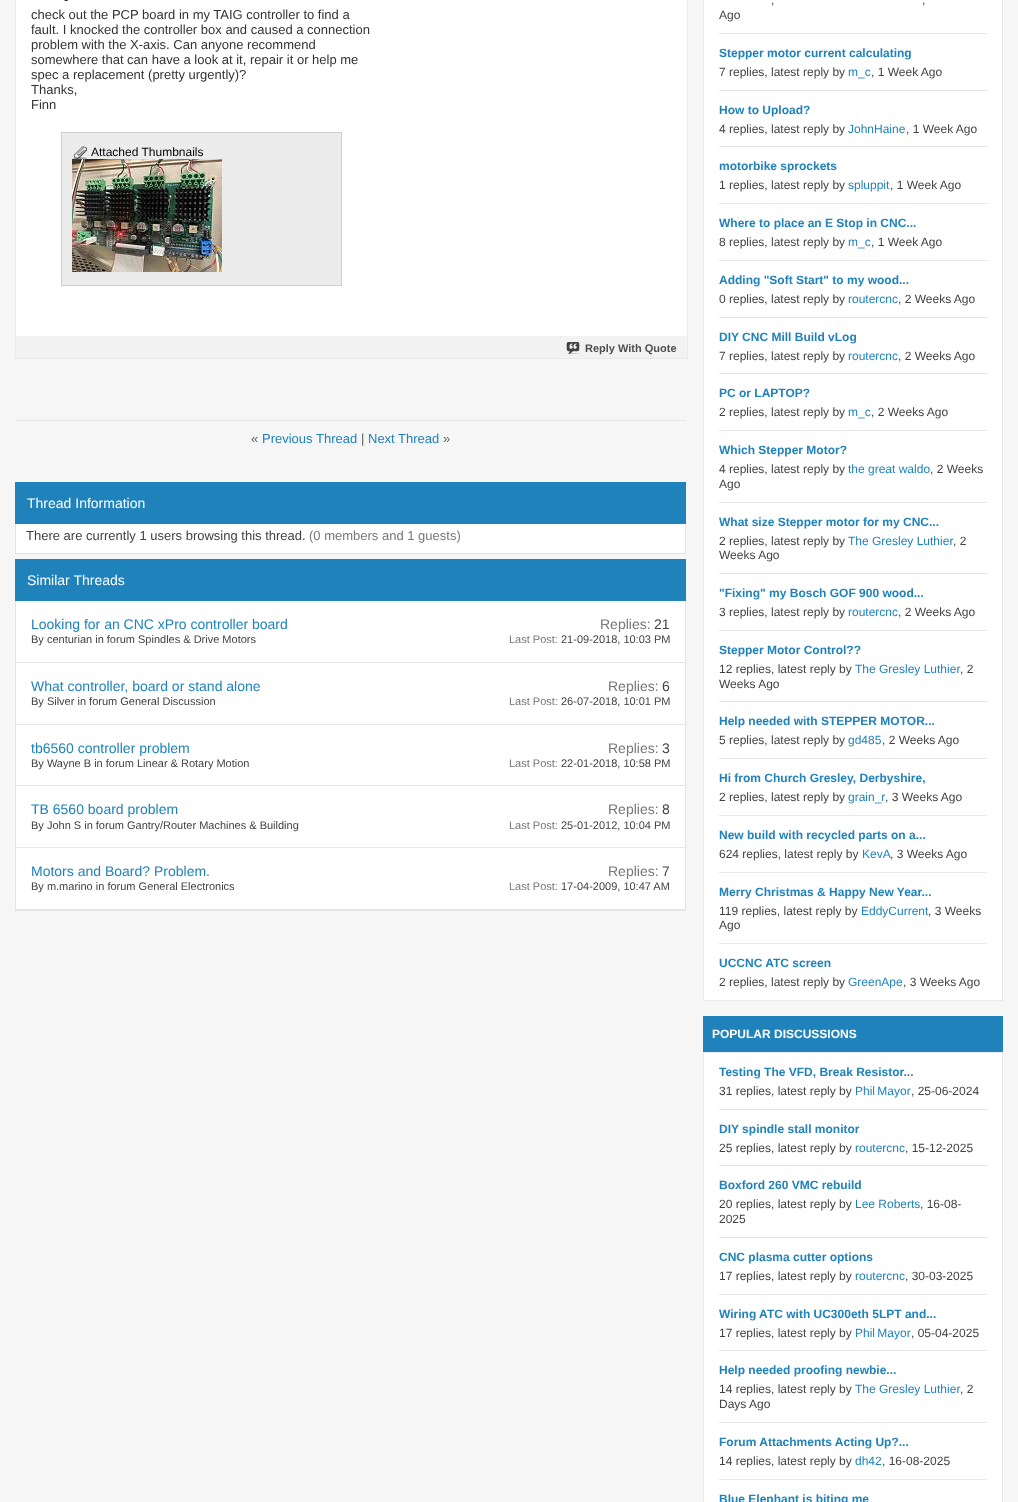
<svg xmlns="http://www.w3.org/2000/svg" width="1018" height="1502" viewBox="0 0 1018 1502">
  <style>
    .t1 { font: 13px Liberation Sans; fill: #333; }
    .t2 { font: 12px Liberation Sans; fill: #000; }
    .t3 { font: bold 11px Liberation Sans; fill: #4e4e4e; }
    .t4 { font: 13px Liberation Sans; fill: #5d5d5d; }
    .t5 { font: 13px Liberation Sans; fill: #1f82bb; }
    .t6 { font: 14px Liberation Sans; fill: #fff; }
    .t7 { font: 13px Liberation Sans; fill: #424242; }
    .t8 { font: 13px Liberation Sans; fill: #777; }
    .t9 { font: 14px Liberation Sans; fill: #1f82bb; }
    .t10 { font: 11px Liberation Sans; fill: #424242; }
    .t11 { font: 14px Liberation Sans; fill: #777; }
    .t12 { font: 14px Liberation Sans; fill: #424242; }
    .t13 { font: 11px Liberation Sans; fill: #777; }
    .t14 { font: 12px Liberation Sans; fill: #424242; }
    .t15 { font: bold 12px Liberation Sans; fill: #1f82bb; }
    .t16 { font: 12px Liberation Sans; fill: #1f82bb; }
    .t17 { font: bold 12px Liberation Sans; fill: #fff; }
  </style>
  <rect width="100%" height="100%" fill="#f6f6f6"/>
  <rect x="15.5" y="-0.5" width="672" height="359" fill="none" stroke="#e9e9e9"/>
  <rect x="16" y="0" width="671" height="336" fill="#fff"/>
  <text x="64" y="4" class="t1">-</text>
  <text x="31" y="19" class="t1">check out the PCP board in my TAIG controller to find a</text>
  <text x="31" y="34" class="t1">fault. I knocked the controller box and caused a connection</text>
  <text x="31" y="49" class="t1">problem with the X-axis. Can anyone recommend</text>
  <text x="31" y="64" class="t1">somewhere that can have a look at it, repair it or help me</text>
  <text x="31" y="79" class="t1">spec a replacement (pretty urgently)?</text>
  <text x="31" y="94" class="t1">Thanks,</text>
  <text x="31" y="109" class="t1">Finn</text>
  <rect x="61.5" y="132.5" width="280" height="153" fill="#ececec" stroke="#cecece"/>
  <image x="72" y="159" width="150" height="113" href="images/2.png"/>
  <image x="73" y="146" width="14" height="14" href="images/1.png"/>
  <text x="91" y="156" class="t2">Attached Thumbnails</text>
  <rect x="16" y="336" width="671" height="22" fill="#f2f2f2"/>
  <image x="566" y="342" width="14" height="12" href="images/3.png"/>
  <text x="585" y="352" class="t3">Reply With Quote</text>
  <rect x="15" y="420" width="671" height="1" fill="#e7e7e7"/>
  <text x="251" y="443" class="t4">«</text>
  <text x="262" y="443" class="t5">Previous Thread</text>
  <text x="361" y="443" class="t4">|</text>
  <text x="368" y="443" class="t5">Next Thread</text>
  <text x="443" y="443" class="t4">»</text>
  <rect x="15" y="482" width="671" height="42" fill="#1f82bb"/>
  <text x="27" y="508" class="t6">Thread Information</text>
  <rect x="16" y="524" width="669" height="29" fill="#fff"/>
  <rect x="685" y="524" width="1" height="30" fill="#e4e4e4"/>
  <rect x="15" y="553" width="671" height="1" fill="#e4e4e4"/>
  <rect x="15" y="524" width="1" height="30" fill="#e4e4e4"/>
  <text x="26" y="540" class="t7">There are currently 1 users browsing this thread.</text>
  <text x="309" y="540" class="t8">(0 members and 1 guests)</text>
  <rect x="15" y="559" width="671" height="42" fill="#1f82bb"/>
  <text x="27" y="585" class="t6">Similar Threads</text>
  <rect x="16" y="601" width="669" height="308" fill="#fff"/>
  <rect x="685" y="601" width="1" height="310" fill="#e4e4e4"/>
  <rect x="15" y="910" width="671" height="1" fill="#e4e4e4"/>
  <rect x="15" y="601" width="1" height="310" fill="#e4e4e4"/>
  <rect x="16" y="662" width="669" height="1" fill="#e7e7e7"/>
  <text x="31" y="629" class="t9">Looking for an CNC xPro controller board</text>
  <text x="31" y="643" class="t10">By centurian in forum Spindles &amp; Drive Motors</text>
  <text x="600" y="629" class="t11">Replies:</text>
  <text x="654" y="629" class="t12">21</text>
  <text x="509" y="643" class="t13">Last Post:</text>
  <text x="561" y="643" class="t10">21-09-2018, 10:03 PM</text>
  <rect x="16" y="724" width="669" height="1" fill="#e7e7e7"/>
  <text x="31" y="691" class="t9">What controller, board or stand alone</text>
  <text x="31" y="705" class="t10">By Silver in forum General Discussion</text>
  <text x="608" y="691" class="t11">Replies:</text>
  <text x="662" y="691" class="t12">6</text>
  <text x="509" y="705" class="t13">Last Post:</text>
  <text x="561" y="705" class="t10">26-07-2018, 10:01 PM</text>
  <rect x="16" y="785" width="669" height="1" fill="#e7e7e7"/>
  <text x="31" y="753" class="t9">tb6560 controller problem</text>
  <text x="31" y="767" class="t10">By Wayne B in forum Linear &amp; Rotary Motion</text>
  <text x="608" y="753" class="t11">Replies:</text>
  <text x="662" y="753" class="t12">3</text>
  <text x="509" y="767" class="t13">Last Post:</text>
  <text x="561" y="767" class="t10">22-01-2018, 10:58 PM</text>
  <rect x="16" y="847" width="669" height="1" fill="#e7e7e7"/>
  <text x="31" y="814" class="t9">TB 6560 board problem</text>
  <text x="31" y="829" class="t10">By John S in forum Gantry/Router Machines &amp; Building</text>
  <text x="608" y="814" class="t11">Replies:</text>
  <text x="662" y="814" class="t12">8</text>
  <text x="509" y="829" class="t13">Last Post:</text>
  <text x="561" y="829" class="t10">25-01-2012, 10:04 PM</text>
  <rect x="16" y="909" width="669" height="1" fill="#e7e7e7"/>
  <text x="31" y="876" class="t9">Motors and Board? Problem.</text>
  <text x="31" y="890" class="t10">By m.marino in forum General Electronics</text>
  <text x="608" y="876" class="t11">Replies:</text>
  <text x="662" y="876" class="t12">7</text>
  <text x="509" y="890" class="t13">Last Post:</text>
  <text x="561" y="890" class="t10">17-04-2009, 10:47 AM</text>
  <rect x="703.5" y="-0.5" width="299" height="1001" fill="#fff" stroke="#e9e9e9"/>
  <text x="771" y="4" class="t14">,</text>
  <text x="922" y="4" class="t14">,</text>
  <text x="719" y="19" class="t14">Ago</text>
  <rect x="719" y="33" width="268" height="1" fill="#e7e7e7"/>
  <text x="719" y="57" class="t15">Stepper motor current calculating</text>
  <text x="719" y="76" class="t14">7 replies, latest reply by</text>
  <text x="848" y="76" class="t16">m_c</text>
  <text x="871" y="76" class="t14">, 1 Week Ago</text>
  <rect x="719" y="90" width="268" height="1" fill="#e7e7e7"/>
  <text x="719" y="114" class="t15">How to Upload?</text>
  <text x="719" y="133" class="t14">4 replies, latest reply by</text>
  <text x="848" y="133" class="t16">JohnHaine</text>
  <text x="906" y="133" class="t14">, 1 Week Ago</text>
  <rect x="719" y="146" width="268" height="1" fill="#e7e7e7"/>
  <text x="719" y="170" class="t15">motorbike sprockets</text>
  <text x="719" y="189" class="t14">1 replies, latest reply by</text>
  <text x="848" y="189" class="t16">spluppit</text>
  <text x="890" y="189" class="t14">, 1 Week Ago</text>
  <rect x="719" y="203" width="268" height="1" fill="#e7e7e7"/>
  <text x="719" y="227" class="t15">Where to place an E Stop in CNC...</text>
  <text x="719" y="246" class="t14">8 replies, latest reply by</text>
  <text x="848" y="246" class="t16">m_c</text>
  <text x="871" y="246" class="t14">, 1 Week Ago</text>
  <rect x="719" y="260" width="268" height="1" fill="#e7e7e7"/>
  <text x="719" y="284" class="t15">Adding "Soft Start" to my wood...</text>
  <text x="719" y="303" class="t14">0 replies, latest reply by</text>
  <text x="848" y="303" class="t16">routercnc</text>
  <text x="898" y="303" class="t14">, 2 Weeks Ago</text>
  <rect x="719" y="317" width="268" height="1" fill="#e7e7e7"/>
  <text x="719" y="341" class="t15">DIY CNC Mill Build vLog</text>
  <text x="719" y="360" class="t14">7 replies, latest reply by</text>
  <text x="848" y="360" class="t16">routercnc</text>
  <text x="898" y="360" class="t14">, 2 Weeks Ago</text>
  <rect x="719" y="373" width="268" height="1" fill="#e7e7e7"/>
  <text x="719" y="397" class="t15">PC or LAPTOP?</text>
  <text x="719" y="416" class="t14">2 replies, latest reply by</text>
  <text x="848" y="416" class="t16">m_c</text>
  <text x="871" y="416" class="t14">, 2 Weeks Ago</text>
  <rect x="719" y="430" width="268" height="1" fill="#e7e7e7"/>
  <text x="719" y="454" class="t15">Which Stepper Motor?</text>
  <text x="719" y="473" class="t14">4 replies, latest reply by</text>
  <text x="848" y="473" class="t16">the great waldo</text>
  <text x="930" y="473" class="t14">, 2 Weeks</text>
  <text x="719" y="488" class="t14">Ago</text>
  <rect x="719" y="502" width="268" height="1" fill="#e7e7e7"/>
  <text x="719" y="526" class="t15">What size Stepper motor for my CNC...</text>
  <text x="719" y="545" class="t14">2 replies, latest reply by</text>
  <text x="848" y="545" class="t16">The Gresley Luthier</text>
  <text x="953" y="545" class="t14">, 2</text>
  <text x="719" y="559" class="t14">Weeks Ago</text>
  <rect x="719" y="573" width="268" height="1" fill="#e7e7e7"/>
  <text x="719" y="597" class="t15">"Fixing" my Bosch GOF 900 wood...</text>
  <text x="719" y="616" class="t14">3 replies, latest reply by</text>
  <text x="848" y="616" class="t16">routercnc</text>
  <text x="898" y="616" class="t14">, 2 Weeks Ago</text>
  <rect x="719" y="630" width="268" height="1" fill="#e7e7e7"/>
  <text x="719" y="654" class="t15">Stepper Motor Control??</text>
  <text x="719" y="673" class="t14">12 replies, latest reply by</text>
  <text x="855" y="673" class="t16">The Gresley Luthier</text>
  <text x="960" y="673" class="t14">, 2</text>
  <text x="719" y="688" class="t14">Weeks Ago</text>
  <rect x="719" y="701" width="268" height="1" fill="#e7e7e7"/>
  <text x="719" y="725" class="t15">Help needed with STEPPER MOTOR...</text>
  <text x="719" y="744" class="t14">5 replies, latest reply by</text>
  <text x="848" y="744" class="t16">gd485</text>
  <text x="882" y="744" class="t14">, 2 Weeks Ago</text>
  <rect x="719" y="758" width="268" height="1" fill="#e7e7e7"/>
  <text x="719" y="782" class="t15">Hi from Church Gresley, Derbyshire,</text>
  <text x="719" y="801" class="t14">2 replies, latest reply by</text>
  <text x="848" y="801" class="t16">grain_r</text>
  <text x="885" y="801" class="t14">, 3 Weeks Ago</text>
  <rect x="719" y="815" width="268" height="1" fill="#e7e7e7"/>
  <text x="719" y="839" class="t15">New build with recycled parts on a...</text>
  <text x="719" y="858" class="t14">624 replies, latest reply by</text>
  <text x="862" y="858" class="t16">KevA</text>
  <text x="890" y="858" class="t14">, 3 Weeks Ago</text>
  <rect x="719" y="872" width="268" height="1" fill="#e7e7e7"/>
  <text x="719" y="896" class="t15">Merry Christmas &amp; Happy New Year...</text>
  <text x="719" y="915" class="t14">119 replies, latest reply by</text>
  <text x="861" y="915" class="t16">EddyCurrent</text>
  <text x="928" y="915" class="t14">, 3 Weeks</text>
  <text x="719" y="929" class="t14">Ago</text>
  <rect x="719" y="943" width="268" height="1" fill="#e7e7e7"/>
  <text x="719" y="967" class="t15">UCCNC ATC screen</text>
  <text x="719" y="986" class="t14">2 replies, latest reply by</text>
  <text x="848" y="986" class="t16">GreenApe</text>
  <text x="903" y="986" class="t14">, 3 Weeks Ago</text>
  <rect x="703" y="1016" width="300" height="36" fill="#1f82bb"/>
  <text x="712" y="1038" class="t17">POPULAR DISCUSSIONS</text>
  <rect x="703.5" y="1052.5" width="299" height="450" fill="#fff" stroke="#e9e9e9"/>
  <text x="719" y="1076" class="t15">Testing The VFD, Break Resistor...</text>
  <text x="719" y="1095" class="t14">31 replies, latest reply by</text>
  <text x="855" y="1095" word-spacing="-1" class="t16">Phil Mayor</text>
  <text x="911" y="1095" class="t14">, 25-06-2024</text>
  <rect x="719" y="1109" width="268" height="1" fill="#e7e7e7"/>
  <text x="719" y="1133" class="t15">DIY spindle stall monitor</text>
  <text x="719" y="1152" class="t14">25 replies, latest reply by</text>
  <text x="855" y="1152" class="t16">routercnc</text>
  <text x="905" y="1152" class="t14">, 15-12-2025</text>
  <rect x="719" y="1165" width="268" height="1" fill="#e7e7e7"/>
  <text x="719" y="1189" class="t15">Boxford 260 VMC rebuild</text>
  <text x="719" y="1208" class="t14">20 replies, latest reply by</text>
  <text x="855" y="1208" class="t16">Lee Roberts</text>
  <text x="920" y="1208" class="t14">, 16-08-</text>
  <text x="719" y="1223" class="t14">2025</text>
  <rect x="719" y="1237" width="268" height="1" fill="#e7e7e7"/>
  <text x="719" y="1261" class="t15">CNC plasma cutter options</text>
  <text x="719" y="1280" class="t14">17 replies, latest reply by</text>
  <text x="855" y="1280" class="t16">routercnc</text>
  <text x="905" y="1280" class="t14">, 30-03-2025</text>
  <rect x="719" y="1294" width="268" height="1" fill="#e7e7e7"/>
  <text x="719" y="1318" class="t15">Wiring ATC with UC300eth 5LPT and...</text>
  <text x="719" y="1337" class="t14">17 replies, latest reply by</text>
  <text x="855" y="1337" word-spacing="-1" class="t16">Phil Mayor</text>
  <text x="911" y="1337" class="t14">, 05-04-2025</text>
  <rect x="719" y="1350" width="268" height="1" fill="#e7e7e7"/>
  <text x="719" y="1374" class="t15">Help needed proofing newbie...</text>
  <text x="719" y="1393" class="t14">14 replies, latest reply by</text>
  <text x="855" y="1393" class="t16">The Gresley Luthier</text>
  <text x="960" y="1393" class="t14">, 2</text>
  <text x="719" y="1408" class="t14">Days Ago</text>
  <rect x="719" y="1422" width="268" height="1" fill="#e7e7e7"/>
  <text x="719" y="1446" class="t15">Forum Attachments Acting Up?...</text>
  <text x="719" y="1465" class="t14">14 replies, latest reply by</text>
  <text x="855" y="1465" class="t16">dh42</text>
  <text x="882" y="1465" class="t14">, 16-08-2025</text>
  <rect x="719" y="1479" width="268" height="1" fill="#e7e7e7"/>
  <text x="719" y="1503" class="t15">Blue Elephant is biting me</text>
</svg>
